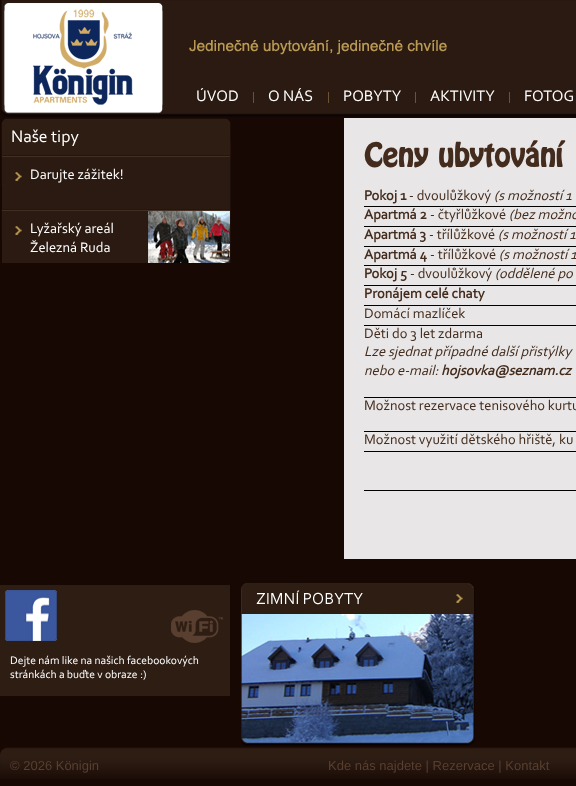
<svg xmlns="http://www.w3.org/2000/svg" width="576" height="786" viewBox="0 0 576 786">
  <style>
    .t1 { font: 16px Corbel; fill: #fff; }
    .t2 { font: 17.5px Corbel; fill: #fff; }
    .t3 { font: 14.4px Corbel; fill: #fff; }
    .t4 { font: bold 28.75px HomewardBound; fill: #432c1d; }
    .t5 { font: bold 14.4px Corbel; fill: #432c1d; }
    .t6 { font: 14.4px Corbel; fill: #432c1d; }
    .t7 { font: italic 14.4px Corbel; fill: #432c1d; }
    .t8 { font: italic bold 14.4px Corbel; fill: #432c1d; }
    .t9 { font: 11.5px Corbel; fill: #fff; }
    .t10 { font: 13px Liberation Sans; fill: #583f30; }
  </style>
  <rect width="100%" height="100%" fill="#170804"/>
  <image x="1" y="0" width="575" height="117" href="images/1.png"/>
  <image x="3" y="3" width="160" height="111" href="images/2.png"/>
  <image x="189" y="40" width="258" height="15" href="images/3.png"/>
  <text x="196" y="101" class="t1">ÚVOD</text>
  <rect x="253" y="92" width="1" height="11" fill="#6d5235"/>
  <text x="268" y="101" class="t1">O NÁS</text>
  <rect x="328" y="92" width="1" height="11" fill="#6d5235"/>
  <text x="343" y="101" class="t1">POBYTY</text>
  <rect x="415" y="92" width="1" height="11" fill="#6d5235"/>
  <text x="430" y="101" class="t1">AKTIVITY</text>
  <rect x="509" y="92" width="1" height="11" fill="#6d5235"/>
  <text x="524" y="101" class="t1">FOTOG</text>
  <image x="1" y="118" width="230" height="37" href="images/4.png"/>
  <text x="11" y="142" class="t2">Naše tipy</text>
  <image x="1" y="155" width="230" height="54" href="images/5.png"/>
  <image x="15" y="172" width="7" height="9" href="images/6.png"/>
  <text x="30" y="179" class="t3">Darujte zážitek!</text>
  <image x="1" y="209" width="230" height="54" href="images/5.png"/>
  <image x="15" y="226" width="7" height="9" href="images/6.png"/>
  <text x="30" y="233" class="t3">Lyžařský areál</text>
  <text x="30" y="252" class="t3">Železná Ruda</text>
  <image x="148" y="211" width="82" height="52" href="images/7.png"/>
  <rect x="344" y="118" width="232" height="441" fill="#e8e6e6"/>
  <text x="364" y="167" class="t4">Ceny ubytování</text>
  <rect x="364" y="206" width="212" height="1" fill="#000"/>
  <text x="364" y="200" class="t5">Pokoj 1</text>
  <text x="409" y="200" class="t6">- dvoulůžkový</text>
  <text x="494" y="200" class="t7">(s možností 1</text>
  <rect x="364" y="226" width="212" height="1" fill="#000"/>
  <text x="364" y="219" class="t5">Apartmá 2</text>
  <text x="430" y="219" class="t6">- čtyřlůžkové</text>
  <text x="509" y="219" class="t7">(bez možno</text>
  <rect x="364" y="246" width="212" height="1" fill="#000"/>
  <text x="364" y="239" class="t5">Apartmá 3</text>
  <text x="429" y="239" class="t6">- třílůžkové</text>
  <text x="498" y="239" class="t7">(s možností 1</text>
  <rect x="364" y="265" width="212" height="1" fill="#000"/>
  <text x="364" y="259" class="t5">Apartmá 4</text>
  <text x="430" y="259" class="t6">- třílůžkové</text>
  <text x="499" y="259" class="t7">(s možností 1</text>
  <rect x="364" y="285" width="212" height="1" fill="#000"/>
  <text x="364" y="278" class="t5">Pokoj 5</text>
  <text x="410" y="278" class="t6">- dvoulůžkový</text>
  <text x="495" y="278" class="t7">(oddělené po</text>
  <rect x="364" y="305" width="212" height="1" fill="#000"/>
  <text x="364" y="298" class="t5">Pronájem celé chaty</text>
  <rect x="364" y="325" width="212" height="1" fill="#000"/>
  <text x="364" y="318" class="t6">Domácí mazlíček</text>
  <rect x="364" y="397" width="212" height="1" fill="#000"/>
  <text x="364" y="338" class="t6">Děti do 3 let zdarma</text>
  <text x="364" y="356" class="t7">Lze sjednat případné další přistýlky</text>
  <text x="364" y="375" class="t7">nebo e-mail:</text>
  <text x="441" y="375" class="t8">hojsovka@seznam.cz</text>
  <rect x="364" y="431" width="212" height="1" fill="#000"/>
  <text x="364" y="410" class="t6">Možnost rezervace tenisového kurtu</text>
  <rect x="364" y="451" width="212" height="1" fill="#000"/>
  <text x="364" y="444" class="t6">Možnost využití dětského hřiště, ku</text>
  <rect x="364" y="490" width="212" height="1" fill="#000"/>
  <rect x="0" y="585" width="230" height="111" fill="#2d1d13"/>
  <image x="171" y="610" width="52" height="33" href="images/8.png"/>
  <image x="5" y="590" width="52" height="51" href="images/9.png"/>
  <text x="10" y="664" class="t9">Dejte nám like na našich facebookových</text>
  <text x="10" y="678" class="t9">stránkách a buďte v obraze :)</text>
  <image x="241" y="583" width="234" height="163" href="images/10.png"/>
  <image x="0" y="747" width="576" height="32" href="images/11.png"/>
  <text x="10" y="770" class="t10">© 2026 Königin</text>
  <text x="328" y="770" class="t10">Kde nás najdete | Rezervace | Kontakt</text>
</svg>
